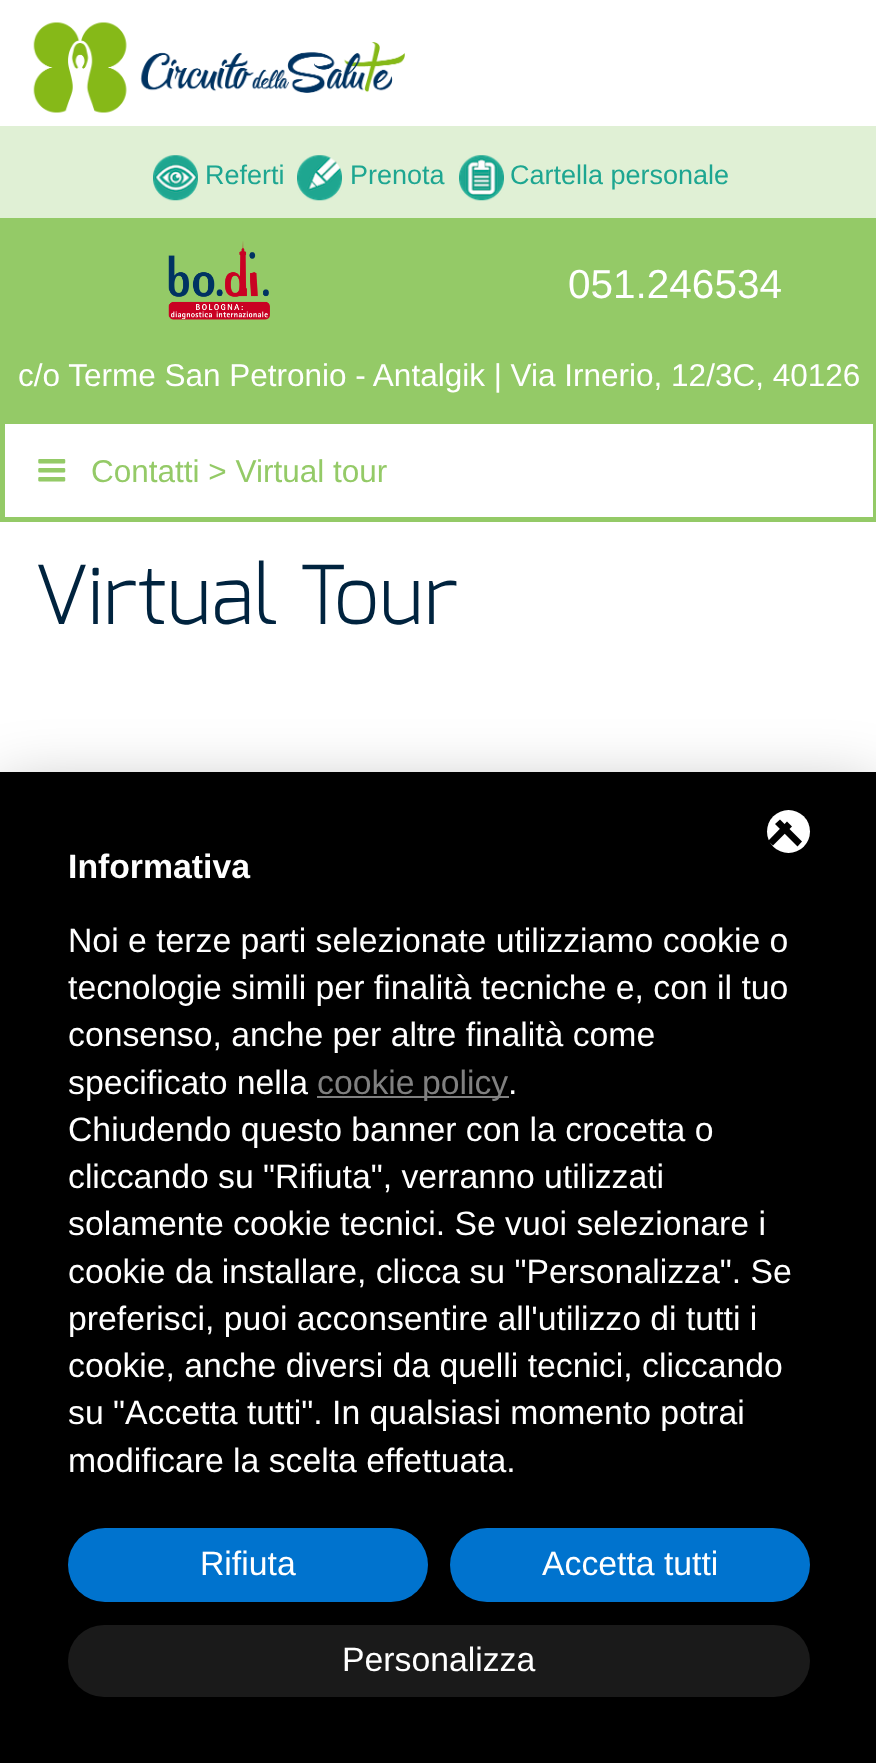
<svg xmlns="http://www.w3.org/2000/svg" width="876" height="1763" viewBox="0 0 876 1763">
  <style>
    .t1 { font: 27px Liberation Sans; fill: #1da691; }
    .t2 { font: 40.5px Liberation Sans; fill: #fff; }
    .t3 { font: 31.5px Liberation Sans; fill: #fff; }
    .t4 { font: 31.5px Liberation Sans; fill: #94ca67; }
    .t5 { font: 300 81px Exo; fill: #00233e; }
    .t6 { font: bold 33.75px Liberation Sans; fill: #fff; }
    .t7 { font: 33.75px Liberation Sans; fill: #fff; }
    .t8 { font: 33.75px Liberation Sans; fill: #808080; }
  </style>
  <rect width="100%" height="100%" fill="#fff"/>
  <image x="33" y="22" width="372" height="91" href="images/1.png"/>
  <rect x="0" y="126" width="876" height="92" fill="#e0f0d5"/>
  <image x="153" y="155" width="45" height="46" href="images/2.png"/>
  <text x="205" y="184" class="t1">Referti</text>
  <image x="297" y="155" width="45" height="46" href="images/3.png"/>
  <text x="350" y="184" class="t1">Prenota</text>
  <image x="459" y="155" width="45" height="46" href="images/4.png"/>
  <text x="510" y="184" class="t1">Cartella personale</text>
  <rect x="0" y="218" width="876" height="201" fill="#94ca67"/>
  <image x="168" y="241" width="102" height="79" href="images/5.png"/>
  <text x="568" y="298" class="t2">051.246534</text>
  <text x="18" y="386" class="t3">c/o Terme San Petronio - Antalgik | Via Irnerio, 12/3C, 40126</text>
  <rect x="2.5" y="421.5" width="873" height="98" fill="none" stroke="#94ca67" stroke-width="5"/>
  <image x="38" y="459" width="28" height="23" href="images/6.png"/>
  <text x="91" y="482" class="t4">Contatti &gt; Virtual tour</text>
  <text x="34" y="624" class="t5">Virtual Tour</text>
  <rect x="0" y="794" width="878" height="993" fill="#00000054" filter="blur(34px)"/>
  <rect x="0" y="772" width="876" height="991" fill="#000"/>
  <circle cx="788.5" cy="831.5" r="21.5" fill="#fff"/>
  <path d="M775 824L780 819.5L802 841.5L797.5 846.5Z" fill="#000"/>
  <path d="M787 821.5L792 826.5L773 845.5L768 841Z" fill="#000"/>
  <text x="68" y="878" class="t6">Informativa</text>
  <text x="68" y="952" class="t7">Noi e terze parti selezionate utilizziamo cookie o</text>
  <text x="68" y="999" class="t7">tecnologie simili per finalità tecniche e, con il tuo</text>
  <text x="68" y="1046" class="t7">consenso, anche per altre finalità come</text>
  <text x="68" y="1094" class="t7">specificato nella</text>
  <rect x="317" y="1096" width="192" height="2" fill="#808080"/>
  <text x="317" y="1094" word-spacing="-2" class="t8">cookie policy</text>
  <text x="508" y="1094" class="t7">.</text>
  <text x="68" y="1141" class="t7">Chiudendo questo banner con la crocetta o</text>
  <text x="68" y="1188" class="t7">cliccando su "Rifiuta", verranno utilizzati</text>
  <text x="68" y="1235" class="t7">solamente cookie tecnici. Se vuoi selezionare i</text>
  <text x="68" y="1283" class="t7">cookie da installare, clicca su "Personalizza". Se</text>
  <text x="68" y="1330" class="t7">preferisci, puoi acconsentire all'utilizzo di tutti i</text>
  <text x="68" y="1377" class="t7">cookie, anche diversi da quelli tecnici, cliccando</text>
  <text x="68" y="1424" class="t7">su "Accetta tutti". In qualsiasi momento potrai</text>
  <text x="68" y="1472" class="t7">modificare la scelta effettuata.</text>
  <rect x="68" y="1528" width="360" height="74" rx="37" fill="#0073ce"/>
  <text x="200" y="1575" class="t7">Rifiuta</text>
  <rect x="450" y="1528" width="360" height="74" rx="37" fill="#0073ce"/>
  <text x="542" y="1575" class="t7">Accetta tutti</text>
  <rect x="68" y="1625" width="742" height="72" rx="36" fill="#1a1a1a"/>
  <text x="342" y="1671" class="t7">Personalizza</text>
</svg>
